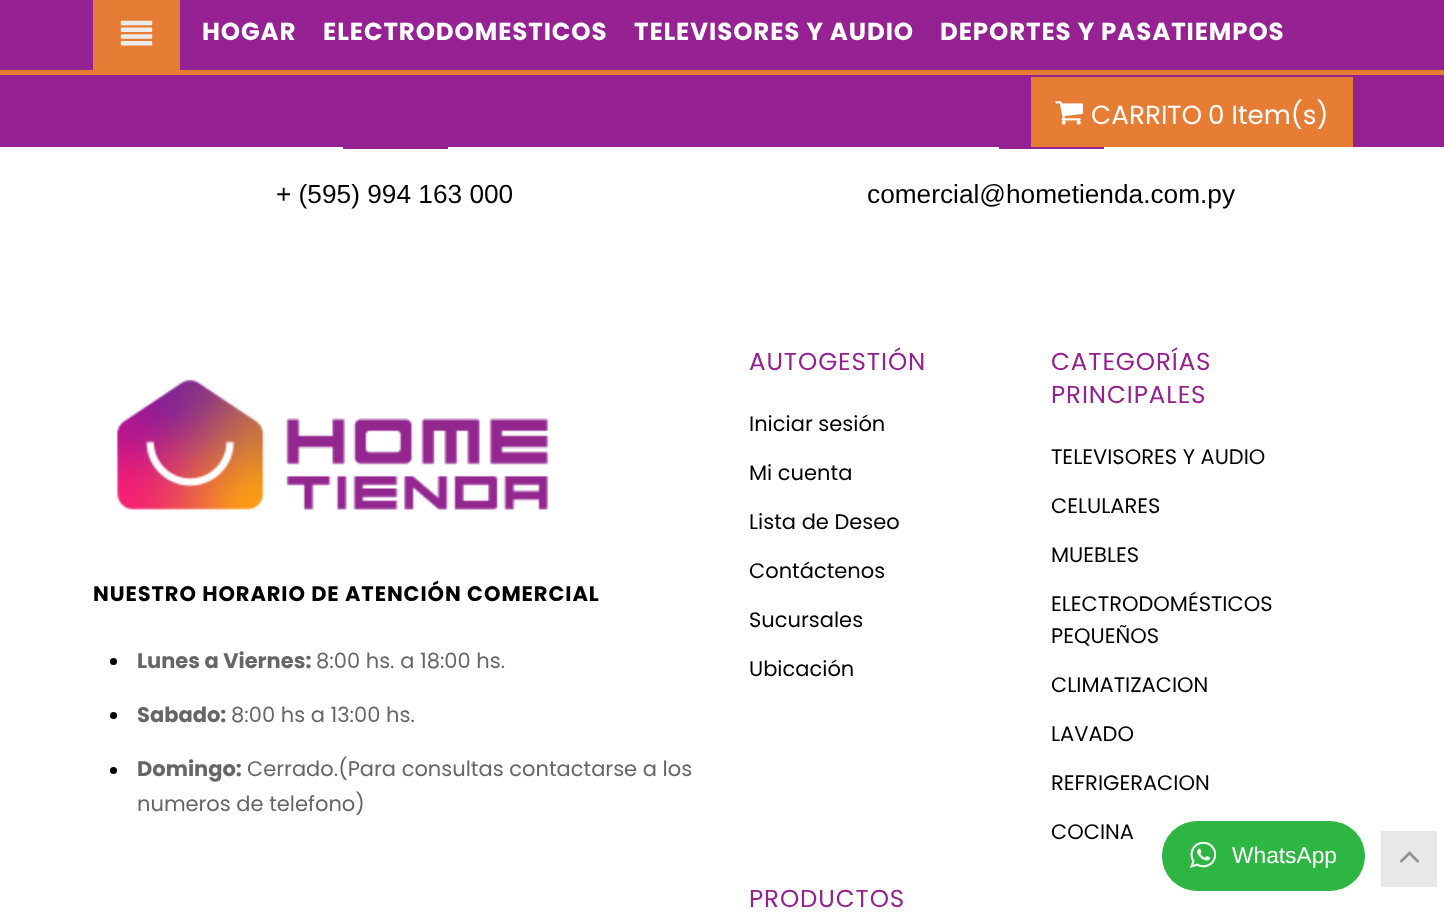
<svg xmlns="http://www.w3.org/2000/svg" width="1444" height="921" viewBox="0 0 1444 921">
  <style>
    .t1 { font: bold 24.5px Poppins; letter-spacing: 0.9px; fill: #fff; }
    .t2 { font: 26.25px Poppins; fill: #fff; }
    .t3 { font: 26.25px Liberation Sans; fill: #000; }
    .t4 { font: bold 21px Poppins; letter-spacing: 0.9px; fill: #000; }
    .t5 { font: bold 21px Poppins; fill: #666; }
    .t6 { font: 21px Poppins; fill: #666; }
    .t7 { font: 24.5px Poppins; letter-spacing: 0.9px; fill: #952191; }
    .t8 { font: 21px Poppins; fill: #000; }
    .t9 { font: 22.75px Liberation Sans; fill: #fff; }
  </style>
  <rect width="100%" height="100%" fill="#fff"/>
  <rect x="0" y="0" width="1444" height="147" fill="#952192"/>
  <rect x="93" y="0" width="87" height="70" fill="#e77d35"/>
  <image x="120" y="20" width="33" height="26" href="images/1.png"/>
  <text x="202" y="40" class="t1">HOGAR</text>
  <text x="323" y="40" class="t1">ELECTRODOMESTICOS</text>
  <text x="634" y="40" class="t1">TELEVISORES Y AUDIO</text>
  <text x="940" y="40" class="t1">DEPORTES Y PASATIEMPOS</text>
  <rect x="1031" y="77" width="322" height="70" fill="#e77d35"/>
  <image x="1055" y="101" width="28" height="24" href="images/2.png"/>
  <text x="1091" y="124" class="t2">CARRITO</text>
  <text x="1208" y="124" class="t2">0 Item(s)</text>
  <rect x="0" y="70" width="1444" height="5" fill="#e77d35"/>
  <rect x="343" y="147" width="105" height="2" fill="#952192"/>
  <text x="276" y="203" class="t3">+ (595) 994 163 000</text>
  <rect x="999" y="147" width="105" height="2" fill="#952192"/>
  <text x="867" y="203" class="t3">comercial@hometienda.com.py</text>
  <image x="116" y="379" width="433" height="131" href="images/3.png"/>
  <text x="93" y="601" class="t4">NUESTRO HORARIO DE ATENCIÓN COMERCIAL</text>
  <circle cx="113.5" cy="661.5" r="3.5" fill="#000"/>
  <text x="137" y="668" class="t5">Lunes a Viernes:</text>
  <text x="316" y="668" class="t6">8:00 hs. a 18:00 hs.</text>
  <circle cx="113.5" cy="715.5" r="3.5" fill="#000"/>
  <text x="137" y="722" class="t5">Sabado:</text>
  <text x="231" y="722" class="t6">8:00 hs a 13:00 hs.</text>
  <circle cx="113.5" cy="770.5" r="3.5" fill="#000"/>
  <text x="137" y="776" class="t5">Domingo:</text>
  <text x="247" y="776" class="t6">Cerrado.(Para consultas contactarse a los</text>
  <text x="137" y="811" class="t6">numeros de telefono)</text>
  <text x="749" y="370" class="t7">AUTOGESTIÓN</text>
  <text x="749" y="431" class="t8">Iniciar sesión</text>
  <text x="749" y="480" class="t8">Mi cuenta</text>
  <text x="749" y="529" class="t8">Lista de Deseo</text>
  <text x="749" y="578" class="t8">Contáctenos</text>
  <text x="749" y="627" class="t8">Sucursales</text>
  <text x="749" y="676" class="t8">Ubicación</text>
  <text x="1051" y="370" class="t7">CATEGORÍAS</text>
  <text x="1051" y="403" class="t7">PRINCIPALES</text>
  <text x="1051" y="464" class="t8">TELEVISORES Y AUDIO</text>
  <text x="1051" y="513" class="t8">CELULARES</text>
  <text x="1051" y="562" class="t8">MUEBLES</text>
  <text x="1051" y="611" class="t8">ELECTRODOMÉSTICOS</text>
  <text x="1051" y="643" class="t8">PEQUEÑOS</text>
  <text x="1051" y="692" class="t8">CLIMATIZACION</text>
  <text x="1051" y="741" class="t8">LAVADO</text>
  <text x="1051" y="790" class="t8">REFRIGERACION</text>
  <text x="1051" y="839" class="t8">COCINA</text>
  <text x="749" y="907" class="t7">PRODUCTOS</text>
  <rect x="1381" y="831" width="56" height="56" fill="#e8e8e8"/>
  <image x="1399" y="851" width="21" height="12" href="images/4.png"/>
  <rect x="1162" y="821" width="203" height="70" rx="35" fill="#2db742"/>
  <image x="1190" y="842" width="26" height="26" href="images/5.png"/>
  <text x="1232" y="863" class="t9">WhatsApp</text>
</svg>
